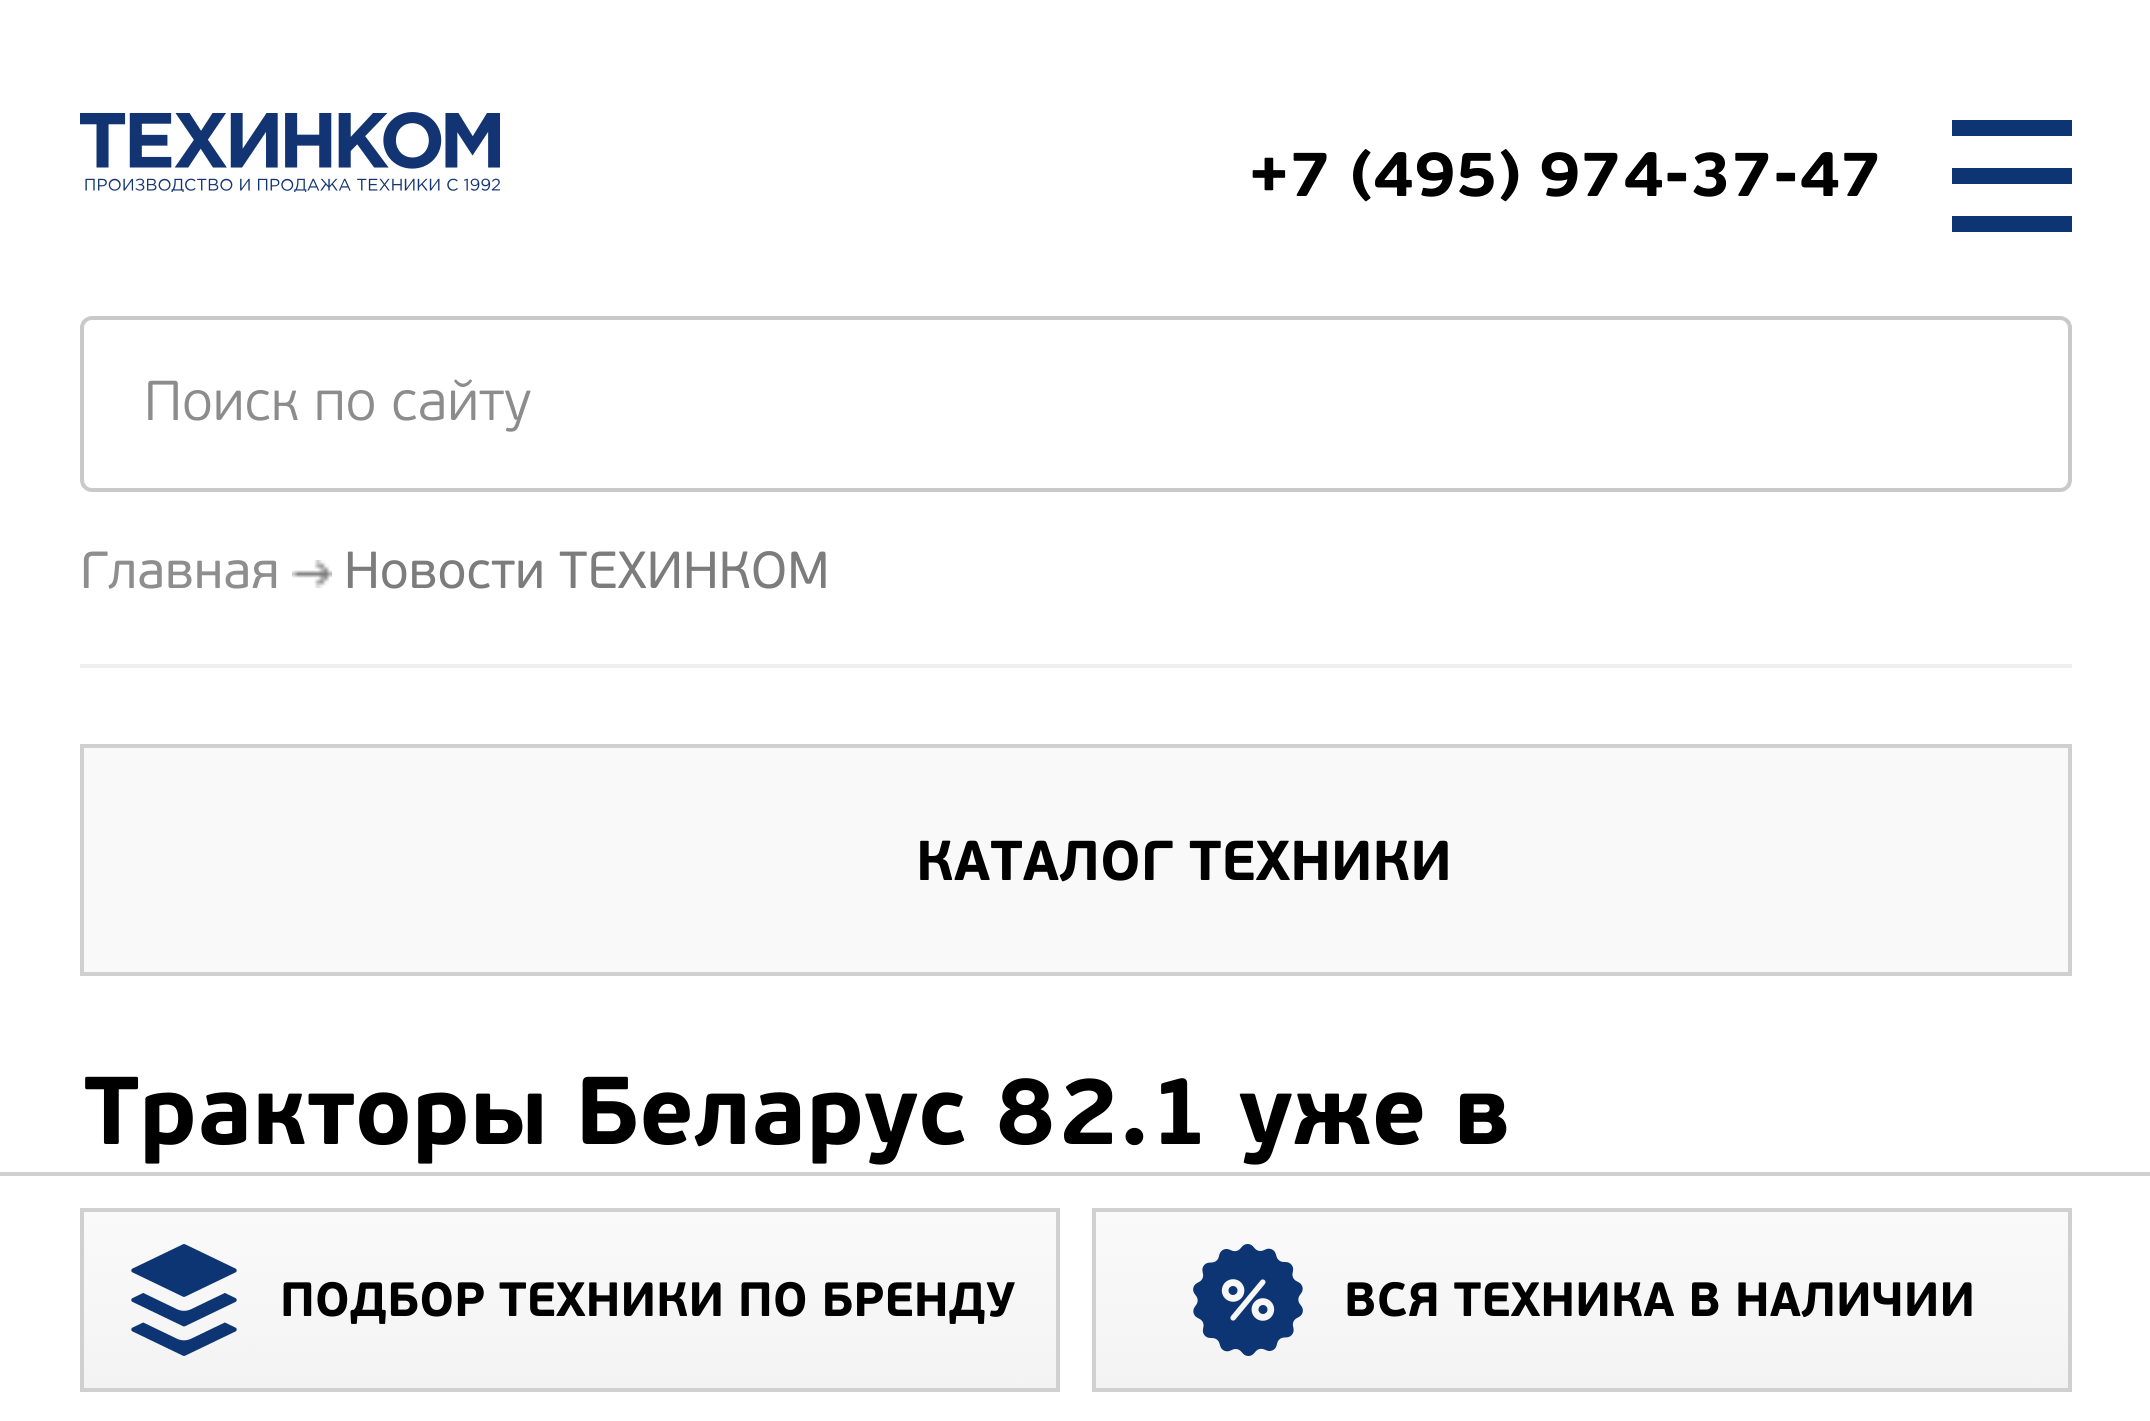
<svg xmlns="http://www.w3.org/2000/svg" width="2150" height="1421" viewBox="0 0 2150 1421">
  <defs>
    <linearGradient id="g1" gradientUnits="userSpaceOnUse" x1="570" y1="1212" x2="570" y2="1388"><stop offset="0" stop-color="#fafafa"/><stop offset="1" stop-color="#f3f3f3"/></linearGradient>
    <linearGradient id="g2" gradientUnits="userSpaceOnUse" x1="1582" y1="1212" x2="1582" y2="1388"><stop offset="0" stop-color="#fafafa"/><stop offset="1" stop-color="#f3f3f3"/></linearGradient>
  </defs>
  <rect width="100%" height="100%" fill="#fff"/>
  <image x="80" y="112" width="420" height="80" href="images/1.png"/>
  <image x="1252" y="149" width="626" height="53" href="images/2.png"/>
  <rect x="1952" y="120" width="120" height="16" fill="#0d3573"/>
  <rect x="1952" y="168" width="120" height="16" fill="#0d3573"/>
  <rect x="1952" y="216" width="120" height="16" fill="#0d3573"/>
  <rect x="82" y="318" width="1988" height="172" rx="10" fill="none" stroke="#c9c9c9" stroke-width="4"/>
  <image x="148" y="379" width="383" height="53" href="images/3.png"/>
  <image x="83" y="551" width="194" height="38" href="images/4.png"/>
  <image x="292" y="560" width="40" height="28" href="images/5.png"/>
  <image x="347" y="551" width="479" height="38" href="images/6.png"/>
  <rect x="80" y="664" width="1992" height="4" fill="#efefef"/>
  <rect x="82" y="746" width="1988" height="228" fill="#f9f9f9" stroke="#d0d0d0" stroke-width="4"/>
  <image x="920" y="840" width="528" height="42" href="images/7.png"/>
  <rect x="0" y="1172" width="2150" height="4" fill="#d0d0d0"/>
  <rect x="84" y="1212" width="972" height="176" fill="url(#g1)"/>
  <rect x="82" y="1210" width="976" height="180" fill="none" stroke="#d0d0d0" stroke-width="4"/>
  <image x="131" y="1244" width="106" height="112" href="images/8.png"/>
  <image x="283" y="1281" width="732" height="43" href="images/9.png"/>
  <rect x="1096" y="1212" width="972" height="176" fill="url(#g2)"/>
  <rect x="1094" y="1210" width="976" height="180" fill="none" stroke="#d0d0d0" stroke-width="4"/>
  <image x="1193" y="1244" width="110" height="112" href="images/10.png"/>
  <image x="1347" y="1281" width="625" height="37" href="images/11.png"/>
  <image x="85" y="1076" width="1422" height="89" href="images/12.png"/>
</svg>
